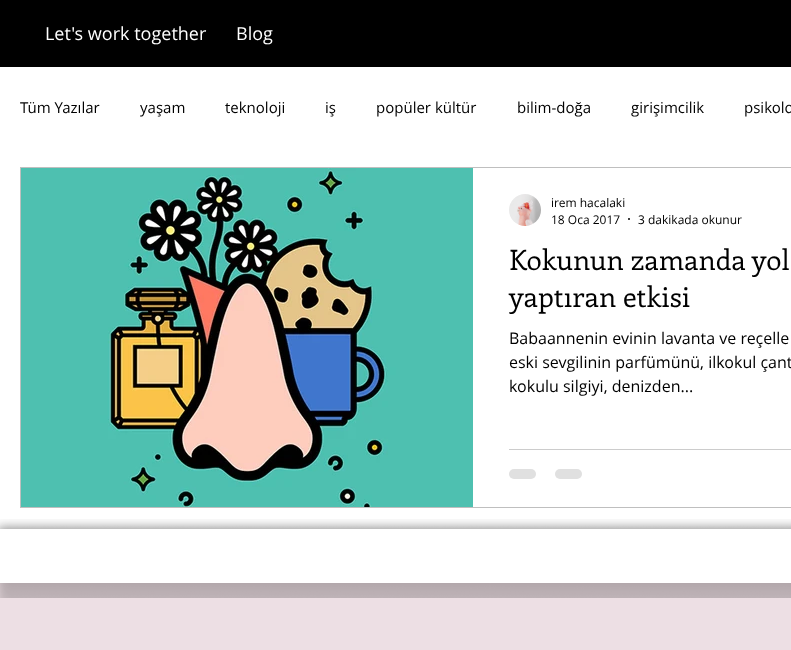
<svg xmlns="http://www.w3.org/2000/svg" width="791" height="650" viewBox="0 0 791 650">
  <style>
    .t1 { font: 18px Open Sans; fill: #fff; }
    .t2 { font: 15px Open Sans; fill: #000; }
    .t3 { font: 12px Open Sans; fill: #000; }
    .t4 { font: 28px Enriqueta; fill: #000; }
    .t5 { font: 16px Open Sans; fill: #000; }
  </style>
  <rect width="100%" height="100%" fill="#eddfe4"/>
  <rect x="0" y="0" width="791" height="67" fill="#000"/>
  <text x="45" y="40" class="t1">Let's work together</text>
  <text x="236" y="40" class="t1">Blog</text>
  <rect x="0" y="67" width="791" height="462" fill="#fff"/>
  <text x="20" y="113" class="t2">Tüm Yazılar</text>
  <text x="140" y="113" class="t2">yaşam</text>
  <text x="225" y="113" class="t2">teknoloji</text>
  <text x="325" y="113" class="t2">iş</text>
  <text x="376" y="113" class="t2">popüler kültür</text>
  <text x="517" y="113" class="t2">bilim-doğa</text>
  <text x="631" y="113" class="t2">girişimcilik</text>
  <text x="744" y="113" class="t2">psikolo</text>
  <rect x="20.5" y="167.5" width="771" height="340" fill="none" stroke="#bfbfbf"/>
  <image x="21" y="168" width="452" height="339" href="images/1.png"/>
  <image x="509" y="194" width="32" height="32" href="images/2.png"/>
  <text x="551" y="207" class="t3">irem hacalaki</text>
  <text x="551" y="224" class="t3">18 Oca 2017</text>
  <circle cx="629" cy="219" r="1" fill="#000"/>
  <text x="638" y="224" class="t3">3 dakikada okunur</text>
  <text x="509" y="270" class="t4">Kokunun zamanda yol</text>
  <text x="509" y="307" class="t4">yaptıran etkisi</text>
  <text x="509" y="344" class="t5">Babaannenin evinin lavanta ve reçelle</text>
  <text x="509" y="368" class="t5">eski sevgilinin parfümünü, ilkokul çant</text>
  <text x="509" y="392" class="t5">kokulu silgiyi, denizden...</text>
  <rect x="509" y="449" width="282" height="1" fill="#ccc"/>
  <rect x="509" y="469" width="27" height="10" rx="5" fill="#e0e0e0"/>
  <rect x="555" y="469" width="27" height="10" rx="5" fill="#e0e0e0"/>
  <image x="0" y="519" width="35" height="79" href="images/3.png"/>
  <image x="35" y="519" width="756" height="79" href="images/4.png"/>
  <rect x="0" y="529" width="791" height="54" fill="#fff"/>
</svg>
